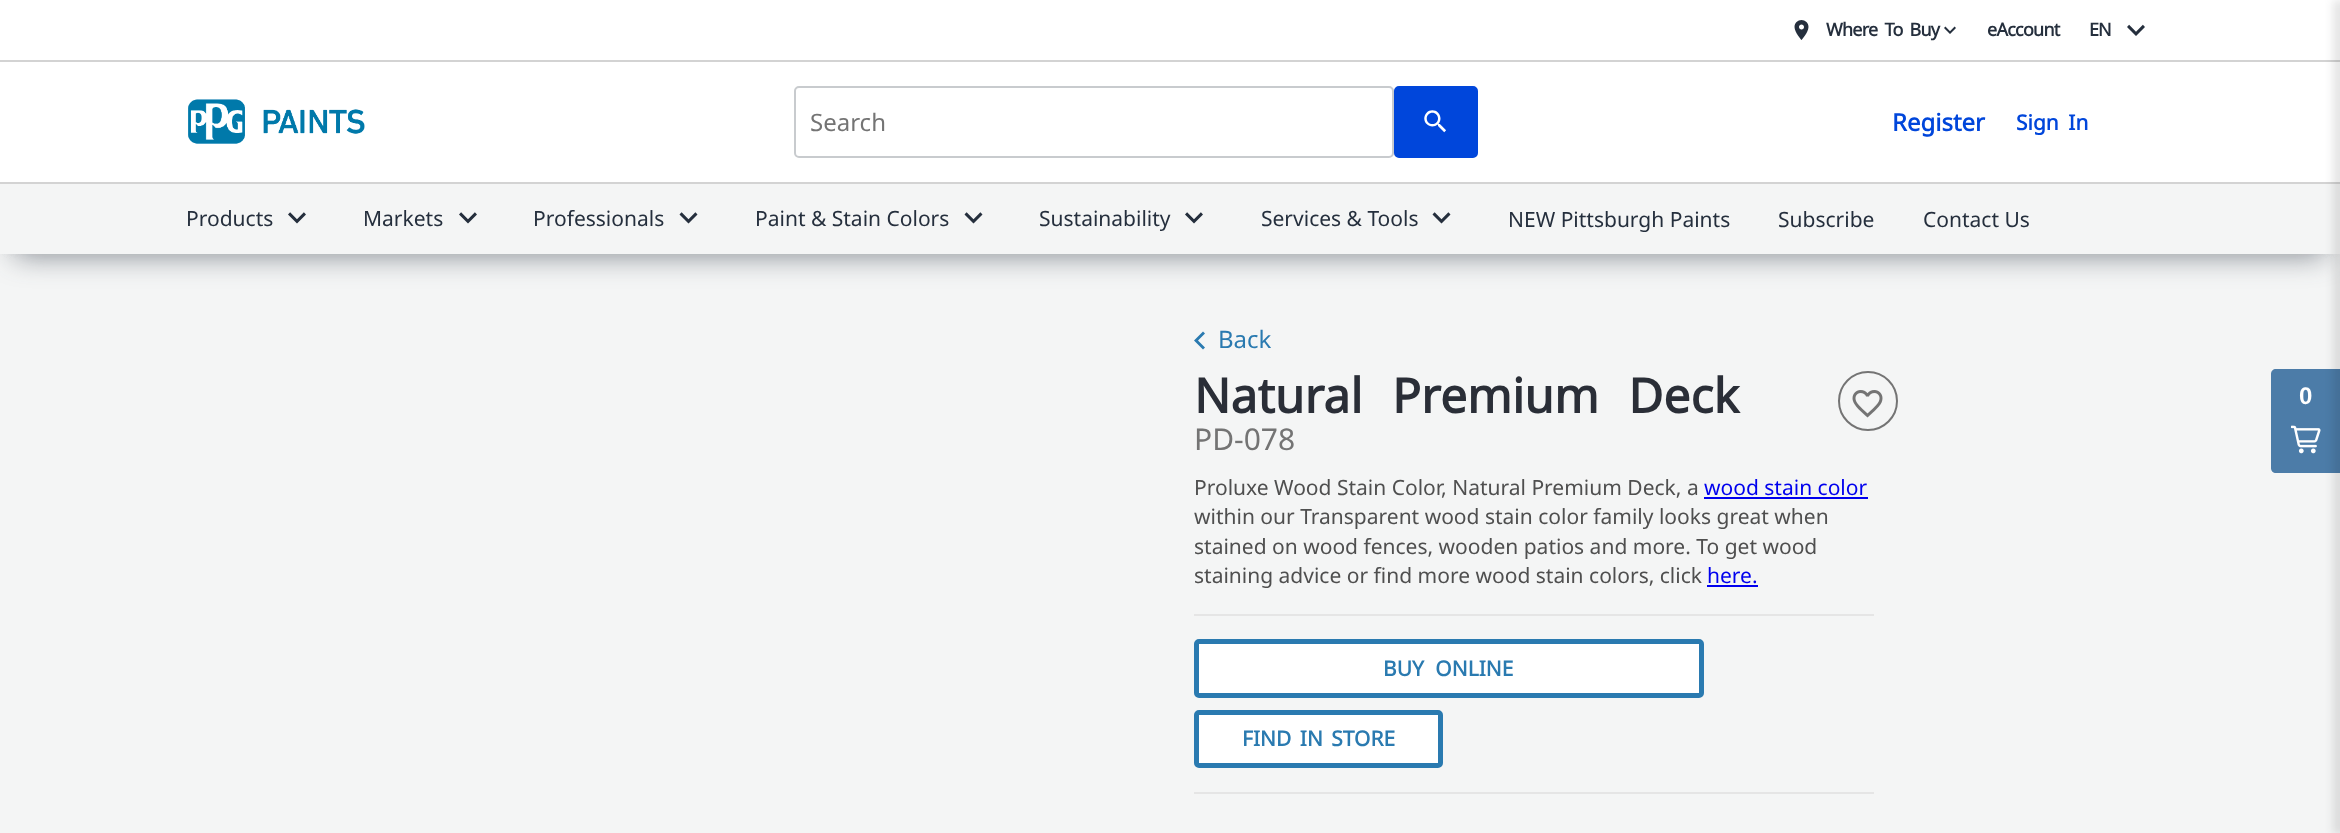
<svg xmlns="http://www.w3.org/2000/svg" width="2340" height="833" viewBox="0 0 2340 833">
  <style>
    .t1 { font: bold 18px Noto Sans; letter-spacing: -0.75px; fill: #252f3d; }
    .t2 { font: bold 18px Noto Sans; letter-spacing: -1px; fill: #252f3d; }
    .t3 { font: 24px Noto Sans; fill: #747474; }
    .t4 { font: bold 24px Noto Sans; fill: #0046db; }
    .t5 { font: bold 21px Noto Sans; fill: #0046db; }
    .t6 { font: 21px Noto Sans; fill: #252f3d; }
    .t7 { font: 24px Noto Sans; fill: #2a7ab0; }
    .t8 { font: bold 48px Noto Sans; fill: #2a2e37; }
    .t9 { font: 30px Noto Sans; fill: #747474; }
    .t10 { font: 21px Noto Sans; fill: #4f4f4f; }
    .t11 { font: 21px Noto Sans; fill: #00e; }
    .t12 { font: bold 21px Noto Sans; fill: #2a7ab0; }
    .t13 { font: bold 24px Liberation Sans; fill: #fff; }
  </style>
  <rect width="100%" height="100%" fill="#f4f5f5"/>
  <rect x="15" y="30" width="2310" height="224" fill="#252f3d99" filter="blur(15px)"/>
  <rect x="0" y="0" width="2340" height="60" fill="#fff"/>
  <image x="1794" y="20" width="15" height="20" href="images/1.png"/>
  <text x="1826" y="36" word-spacing="3" class="t1">Where To Buy</text>
  <image x="1944" y="26" width="12" height="8" href="images/2.png"/>
  <text x="1987" y="36" class="t1">eAccount</text>
  <text x="2089" y="36" class="t2">EN</text>
  <image x="2127" y="24" width="18" height="12" href="images/3.png"/>
  <rect x="11" y="75" width="2319" height="173" fill="#d3d3d3" filter="blur(5px)"/>
  <rect x="0" y="62" width="2340" height="120" fill="#fff"/>
  <rect x="0" y="60" width="2340" height="2" fill="#d3d3d3"/>
  <image x="188" y="99" width="177" height="45" href="images/4.png"/>
  <rect x="795" y="87" width="598" height="70" rx="4" fill="none" stroke="#c8cbce" stroke-width="2"/>
  <text x="810" y="131" class="t3">Search</text>
  <rect x="1395.5" y="87.5" width="81" height="69" rx="3.5" fill="#0046db" stroke="#0046db" stroke-width="3"/>
  <image x="1424" y="110" width="22" height="23" href="images/5.png"/>
  <text x="1892" y="131" class="t4">Register</text>
  <text x="2016" y="130" word-spacing="4" class="t5">Sign In</text>
  <rect x="11" y="197" width="2319" height="51" fill="#d3d3d3" filter="blur(5px)"/>
  <rect x="0" y="184" width="2340" height="70" fill="#f4f5f5"/>
  <rect x="0" y="182" width="2340" height="2" fill="#d3d3d3"/>
  <text x="186" y="226" class="t6">Products</text>
  <image x="288" y="212" width="18" height="12" href="images/6.png"/>
  <text x="363" y="226" class="t6">Markets</text>
  <image x="459" y="212" width="18" height="12" href="images/6.png"/>
  <text x="533" y="226" class="t6">Professionals</text>
  <image x="679" y="212" width="19" height="12" href="images/7.png"/>
  <text x="755" y="226" class="t6">Paint &amp; Stain Colors</text>
  <image x="964" y="212" width="19" height="12" href="images/7.png"/>
  <text x="1039" y="226" class="t6">Sustainability</text>
  <image x="1185" y="212" width="18" height="12" href="images/6.png"/>
  <text x="1261" y="226" class="t6">Services &amp; Tools</text>
  <image x="1432" y="212" width="19" height="12" href="images/7.png"/>
  <text x="1508" y="227" class="t6">NEW Pittsburgh Paints</text>
  <text x="1778" y="227" class="t6">Subscribe</text>
  <text x="1923" y="227" class="t6">Contact Us</text>
  <path d="M1205 333.5L1198 340.5L1205 347.5L1203 349.5L1194 340.5L1203 331.5Z" fill="#2a7ab0"/>
  <text x="1218" y="348" class="t7">Back</text>
  <text x="1194" y="413" word-spacing="17" class="t8">Natural Premium Deck</text>
  <circle cx="1868" cy="401" r="29" fill="none" stroke="#747474" stroke-width="2"/>
  <image x="1852" y="390" width="31" height="28" href="images/8.png"/>
  <text x="1194" y="450" class="t9">PD-078</text>
  <text x="1194" y="495" class="t10">Proluxe Wood Stain Color, Natural Premium Deck, a</text>
  <text x="1704" y="495" class="t11">wood stain color</text>
  <rect x="1704" y="497" width="164" height="2" fill="#00e"/>
  <text x="1194" y="524" class="t10">within our Transparent wood stain color family looks great when</text>
  <text x="1194" y="554" class="t10">stained on wood fences, wooden patios and more. To get wood</text>
  <text x="1194" y="583" class="t10">staining advice or find more wood stain colors, click</text>
  <text x="1707" y="583" class="t11">here.</text>
  <rect x="1707" y="585" width="51" height="2" fill="#00e"/>
  <rect x="1194" y="614" width="680" height="2" fill="#e5e5e5"/>
  <rect x="1194" y="792" width="680" height="2" fill="#e5e5e5"/>
  <rect x="1196.5" y="641.5" width="505" height="54" rx="2.5" fill="#fff" stroke="#2a7ab0" stroke-width="5"/>
  <text x="1383" y="676" word-spacing="6" class="t12">BUY ONLINE</text>
  <rect x="1196.5" y="712.5" width="244" height="53" rx="2.5" fill="#fff" stroke="#2a7ab0" stroke-width="5"/>
  <text x="1242" y="746" word-spacing="3" class="t12">FIND IN STORE</text>
  <path d="M2276 369H2340V473H2276C2273 473 2271 471 2271 468V374C2271 371 2273 369 2276 369Z" fill="#4c7ca8"/>
  <text x="2299" y="404" class="t13">0</text>
  <image x="2291" y="425" width="30" height="29" href="images/9.png"/>
  <rect x="2333" y="0" width="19" height="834" fill="#0000001a" filter="blur(4px)"/>
</svg>
